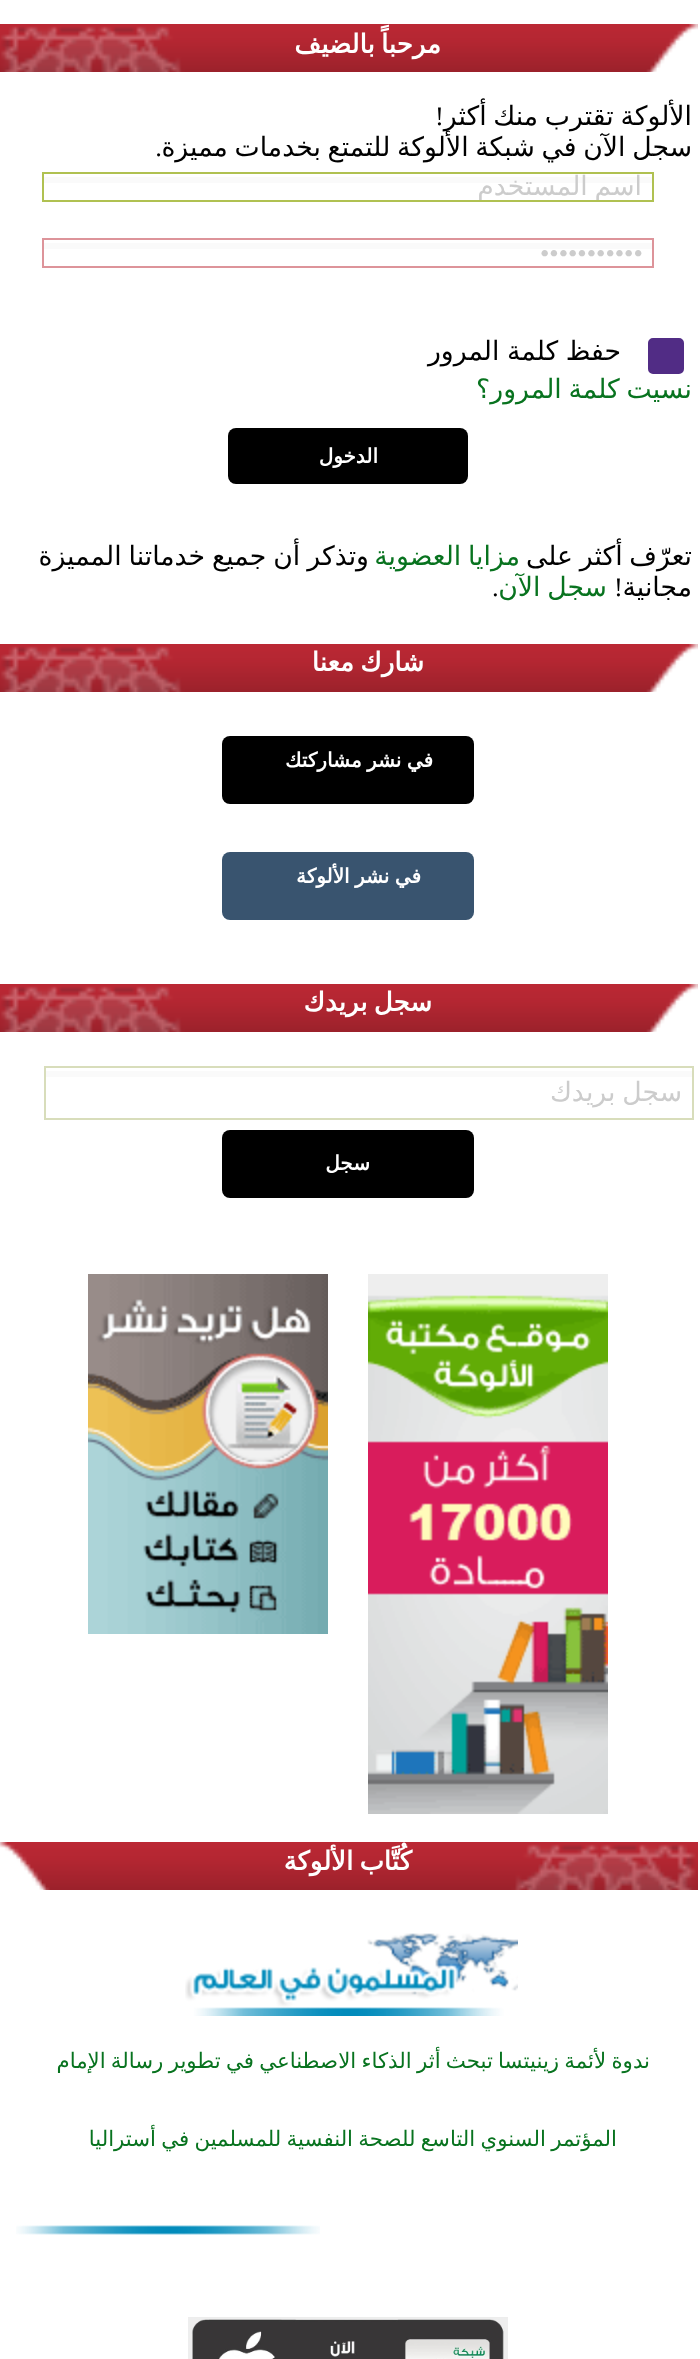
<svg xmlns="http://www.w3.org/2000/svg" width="700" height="2359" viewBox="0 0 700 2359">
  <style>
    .t1 { font: bold 26px DejaVu Sans; direction: rtl; fill: #fff; }
    .t2 { font: 26.7px DejaVu Sans; direction: rtl; fill: #000; }
    .t3 { font: 26.7px Liberation Serif; direction: rtl; fill: #000; }
    .t4 { font: 26.7px DejaVu Sans; direction: rtl; fill: #ccc; }
    .t5 { font: 26.7px Liberation Serif; fill: #ccc; }
    .t6 { font: 26.7px DejaVu Sans; direction: rtl; fill: #08731f; }
    .t7 { font: bold 20px DejaVu Sans; direction: rtl; fill: #fff; }
    .t8 { font: 26.7px Liberation Serif; fill: #000; }
    .t9 { font: 21.3px DejaVu Sans; direction: rtl; fill: #08731f; }
  </style>
  <defs>
    <clipPath id="clip1"><rect x="54" y="174" width="588" height="26"/></clipPath>
  </defs>
  <rect width="100%" height="100%" fill="#fff"/>
  <image x="0" y="24" width="698" height="48" href="images/1.png"/>
  <text x="441" y="53" word-spacing="-2" class="t1">مرحباً بالضيف</text>
  <text x="692" y="125" word-spacing="-1.75" class="t2">الألوكة تقترب منك أكثر</text>
  <text x="444" y="125" class="t3">!</text>
  <text x="692" y="156" word-spacing="-1.75" class="t2">سجل الآن في شبكة الألوكة للتمتع بخدمات مميزة</text>
  <text x="162" y="156" class="t3">.</text>
  <rect x="42" y="177" width="612" height="6" fill="#fafafa"/>
  <rect x="43" y="173" width="610" height="28" fill="none" stroke="#b0c151" stroke-width="2"/>
  <g clip-path="url(#clip1)">
    <text x="642" y="195" word-spacing="-1.75" class="t4">اسم المستخدم</text>
  </g>
  <rect x="42" y="243" width="612" height="6" fill="#fafafa"/>
  <rect x="43" y="239" width="610" height="28" fill="none" stroke="#dd949a" stroke-width="2"/>
  <text x="540" y="262" class="t5">•••••••••••</text>
  <rect x="649" y="343" width="20" height="20" rx="2" fill="none" stroke="#767676" stroke-width="2"/>
  <rect x="649" y="339" width="34" height="34" rx="4" fill="#512c85" stroke="#512c85" stroke-width="2"/>
  <text x="621" y="360" word-spacing="-1" class="t2">حفظ كلمة المرور</text>
  <text x="692" y="398" word-spacing="-1.75" class="t6">نسيت كلمة المرور؟</text>
  <rect x="228" y="428" width="240" height="56" rx="8" fill="#000"/>
  <text x="378" y="463" class="t7">الدخول</text>
  <text x="692" y="565" word-spacing="-1.75" class="t2">تعرّف أكثر على</text>
  <text x="520" y="565" word-spacing="-1.75" class="t6">مزايا العضوية</text>
  <text x="369" y="565" word-spacing="-1.5" class="t2">وتذكر أن جميع خدماتنا المميزة</text>
  <text x="692" y="596" class="t2">مجانية</text>
  <text x="623" y="596" class="t3">!</text>
  <text x="607" y="596" word-spacing="-1.75" class="t6">سجل الآن</text>
  <text x="492" y="596" class="t8">.</text>
  <image x="0" y="644" width="698" height="48" href="images/1.png"/>
  <text x="424" y="671" word-spacing="-2" class="t1">شارك معنا</text>
  <rect x="222" y="736" width="252" height="68" rx="8" fill="#000"/>
  <text x="433" y="767" word-spacing="-1" class="t7">في نشر مشاركتك</text>
  <rect x="222" y="852" width="252" height="68" rx="8" fill="#39546f"/>
  <text x="421" y="883" word-spacing="-1" class="t7">في نشر الألوكة</text>
  <image x="0" y="984" width="698" height="48" href="images/1.png"/>
  <text x="432" y="1011" word-spacing="-2" class="t1">سجل بريدك</text>
  <rect x="44" y="1071" width="650" height="6" fill="#fafafa"/>
  <rect x="45" y="1067" width="648" height="52" fill="none" stroke="#d8ddbb" stroke-width="2"/>
  <text x="682" y="1101" word-spacing="-1.75" class="t4">سجل بريدك</text>
  <rect x="222" y="1130" width="252" height="68" rx="8" fill="#000"/>
  <text x="370" y="1170" class="t7">سجل</text>
  <image x="368" y="1274" width="240" height="540" href="images/2.png"/>
  <image x="88" y="1274" width="240" height="360" href="images/3.png"/>
  <image x="0" y="1842" width="698" height="48" href="images/4.png"/>
  <text x="412" y="1870" word-spacing="-2" class="t1">كُتَّاب الألوكة</text>
  <image x="185" y="1933" width="333" height="83" href="images/5.png"/>
  <image x="16" y="2225" width="304" height="10" href="images/6.png"/>
  <text x="650" y="2068" word-spacing="-1.5" class="t9">ندوة لأئمة زينيتسا تبحث أثر الذكاء الاصطناعي في تطوير رسالة الإمام</text>
  <text x="617" y="2146" word-spacing="-1.5" class="t9">المؤتمر السنوي التاسع للصحة النفسية للمسلمين في أستراليا</text>
  <image x="188" y="2317" width="320" height="42" href="images/7.png"/>
</svg>
